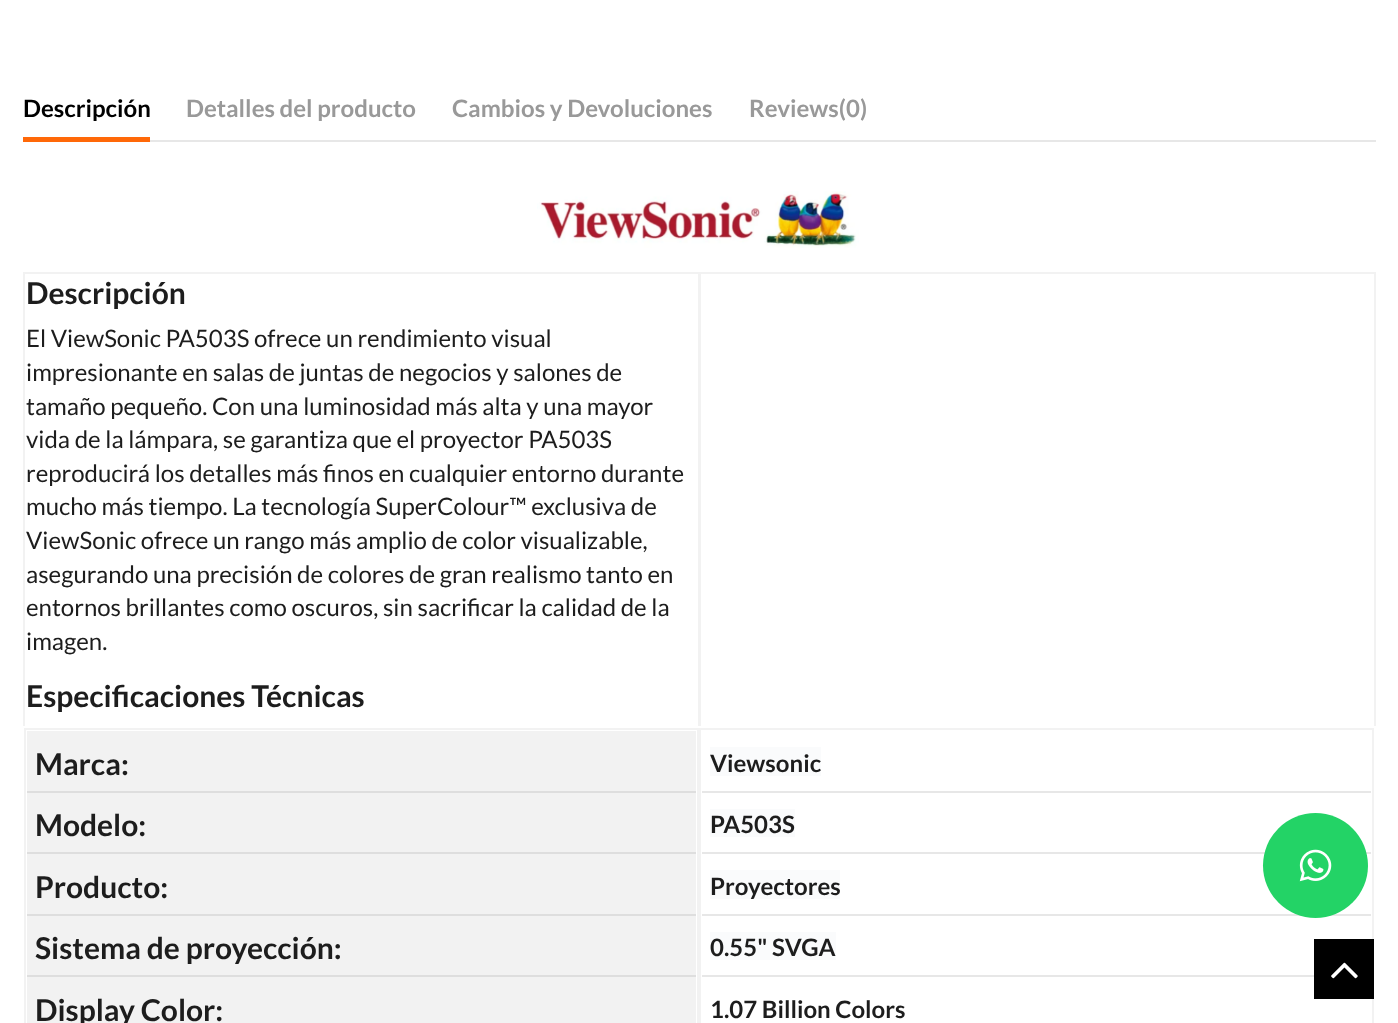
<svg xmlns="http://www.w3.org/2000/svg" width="1398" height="1023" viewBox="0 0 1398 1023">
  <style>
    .t1 { font: bold 24px Lato; fill: #000; }
    .t2 { font: bold 24px Lato; fill: #999; }
    .t3 { font: bold 30px Lato; fill: #1d1d1d; }
    .t4 { font: 24px Lato; fill: #1d1d1d; }
    .t5 { font: bold 24px Lato; fill: #1d1d1d; }
  </style>
  <rect width="100%" height="100%" fill="#fff"/>
  <rect x="150" y="140" width="1226" height="2" fill="#e7e7e7"/>
  <rect x="23" y="137" width="127" height="5" fill="#ff6808"/>
  <text x="23" y="117" class="t1">Descripción</text>
  <text x="186" y="117" class="t2">Detalles del producto</text>
  <text x="452" y="117" class="t2">Cambios y Devoluciones</text>
  <text x="749" y="117" class="t2">Reviews(0)</text>
  <image x="537" y="191" width="322" height="57" href="images/1.png"/>
  <rect x="23" y="272" width="1353" height="2" fill="#f2f2f2"/>
  <rect x="698" y="272" width="3" height="454" fill="#f2f2f2"/>
  <rect x="23" y="272" width="2" height="454" fill="#f2f2f2"/>
  <text x="26" y="304" class="t3">Descripción</text>
  <text x="26" y="347" class="t4">El ViewSonic PA503S ofrece un rendimiento visual</text>
  <text x="26" y="381" class="t4">impresionante en salas de juntas de negocios y salones de</text>
  <text x="26" y="415" class="t4">tamaño pequeño. Con una luminosidad más alta y una mayor</text>
  <text x="26" y="448" class="t4">vida de la lámpara, se garantiza que el proyector PA503S</text>
  <text x="26" y="482" class="t4">reproducirá los detalles más finos en cualquier entorno durante</text>
  <text x="26" y="515" class="t4">mucho más tiempo. La tecnología SuperColour™ exclusiva de</text>
  <text x="26" y="549" class="t4">ViewSonic ofrece un rango más amplio de color visualizable,</text>
  <text x="26" y="583" class="t4">asegurando una precisión de colores de gran realismo tanto en</text>
  <text x="26" y="616" class="t4">entornos brillantes como oscuros, sin sacrificar la calidad de la</text>
  <text x="26" y="650" class="t4">imagen.</text>
  <text x="26" y="707" class="t3">Especificaciones Técnicas</text>
  <rect x="1374" y="272" width="2" height="454" fill="#f2f2f2"/>
  <rect x="25" y="729" width="673" height="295" fill="none" stroke="#f2f2f2" stroke-width="2"/>
  <rect x="27" y="731" width="669" height="292" fill="#f2f2f2"/>
  <text x="35" y="775" class="t3">Marca:</text>
  <rect x="27" y="791" width="669" height="2" fill="#dedede"/>
  <text x="35" y="836" class="t3">Modelo:</text>
  <rect x="27" y="852" width="669" height="2" fill="#dedede"/>
  <text x="35" y="898" class="t3">Producto:</text>
  <rect x="27" y="914" width="669" height="2" fill="#dedede"/>
  <text x="35" y="959" class="t3">Sistema de proyección:</text>
  <rect x="27" y="975" width="669" height="2" fill="#dedede"/>
  <text x="35" y="1021" class="t3">Display Color:</text>
  <rect x="700" y="729" width="673" height="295" fill="none" stroke="#f2f2f2" stroke-width="2"/>
  <rect x="710" y="747" width="111" height="29" fill="#fafbfc"/>
  <text x="710" y="772" class="t5">Viewsonic</text>
  <rect x="702" y="791" width="669" height="2" fill="#e7e7e7"/>
  <rect x="710" y="809" width="85" height="28" fill="#fafbfc"/>
  <text x="710" y="833" class="t5">PA503S</text>
  <rect x="702" y="852" width="669" height="2" fill="#e7e7e7"/>
  <rect x="710" y="870" width="130" height="29" fill="#fafbfc"/>
  <text x="710" y="895" class="t5">Proyectores</text>
  <rect x="702" y="914" width="669" height="2" fill="#e7e7e7"/>
  <rect x="710" y="932" width="126" height="28" fill="#fafbfc"/>
  <text x="710" y="956" class="t5">0.55" SVGA</text>
  <rect x="702" y="975" width="612" height="2" fill="#e7e7e7"/>
  <text x="710" y="1018" class="t5">1.07 Billion Colors</text>
  <circle cx="1315.5" cy="865.5" r="52.5" fill="#23d366"/>
  <image x="1299" y="849" width="33" height="33" href="images/2.png"/>
  <rect x="1314" y="939" width="60" height="60" fill="#000"/>
  <image x="1331" y="962" width="27" height="17" href="images/3.png"/>
</svg>
